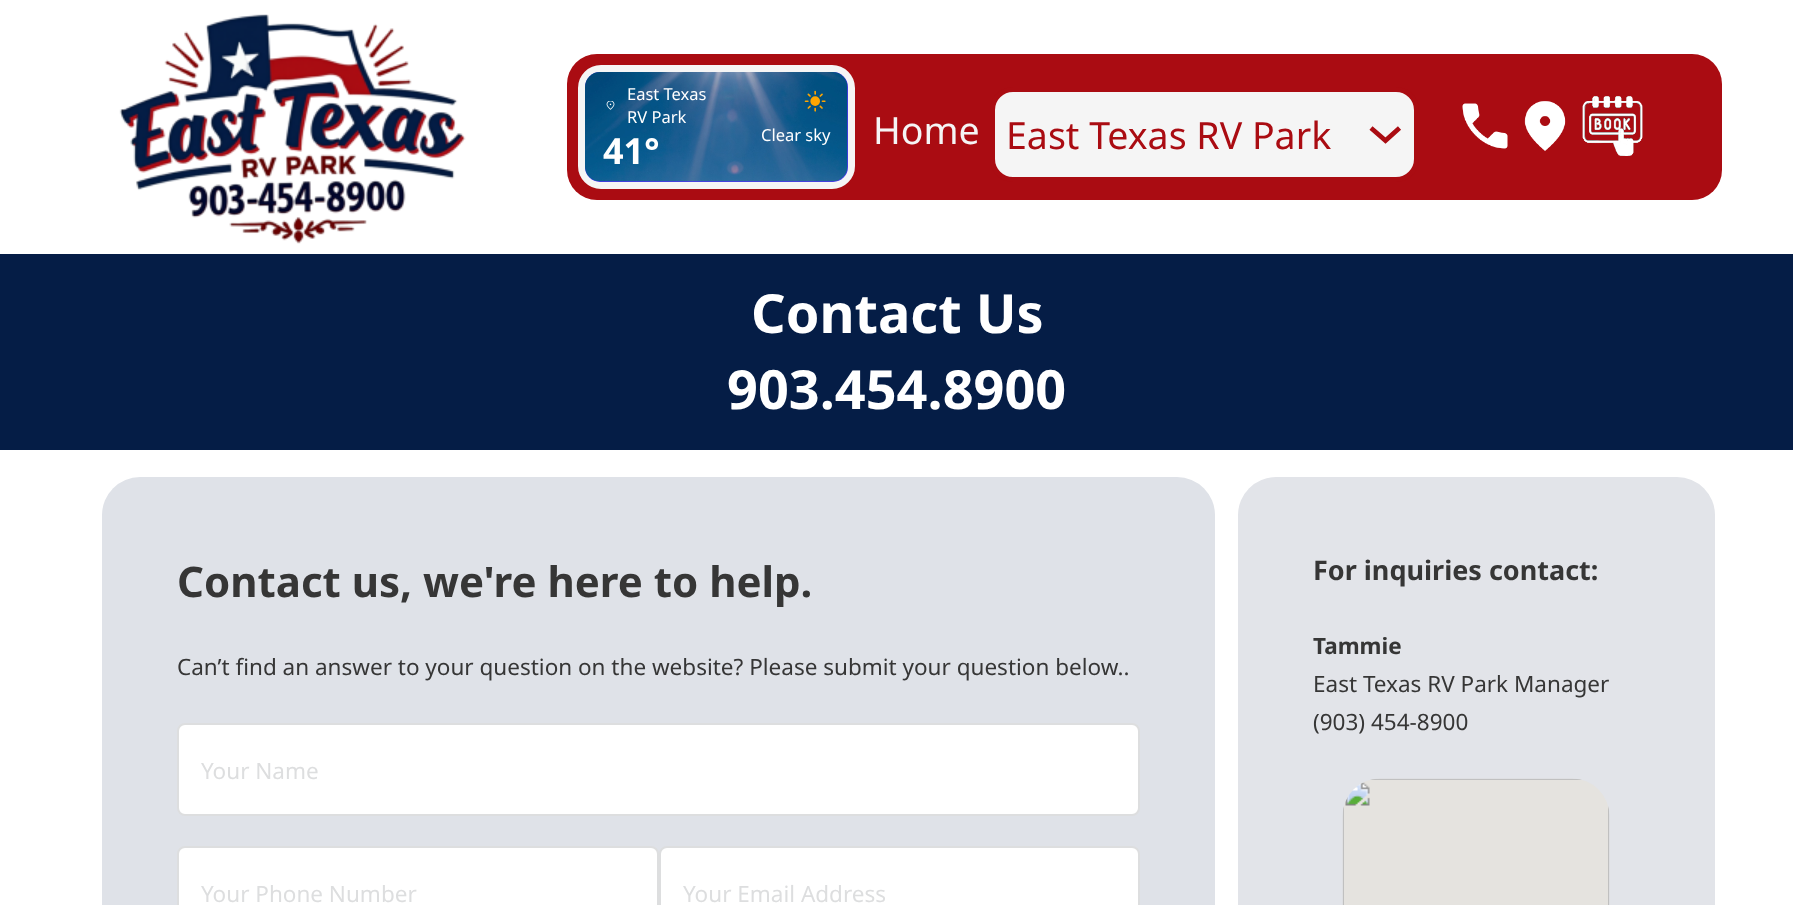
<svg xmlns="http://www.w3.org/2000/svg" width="1793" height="905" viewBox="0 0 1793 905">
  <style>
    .t1 { font: 16.5px Noto Sans; fill: #fff; }
    .t2 { font: bold 36px Noto Sans; fill: #fff; }
    .t3 { font: 37.5px Noto Sans; fill: #f5f5f5; }
    .t4 { font: 37.5px Noto Sans; fill: #aa0c12; }
    .t5 { font: bold 54px Noto Sans; fill: #fff; }
    .t6 { font: bold 42px Noto Sans; fill: #363636; }
    .t7 { font: 22.5px Noto Sans; fill: #363636; }
    .t8 { font: 22.5px Noto Sans; fill: #dddedf; }
    .t9 { font: bold 27px Noto Sans; fill: #363636; }
    .t10 { font: bold 22.5px Noto Sans; fill: #363636; }
  </style>
  <rect width="100%" height="100%" fill="#fff"/>
  <image x="119" y="14" width="347" height="230" href="images/1.png"/>
  <rect x="567" y="54" width="1155" height="146" rx="30" fill="#aa0c12"/>
  <rect x="582" y="69" width="269" height="116" rx="19" fill="none" stroke="#f5f5f5" stroke-width="8"/>
  <rect x="585" y="72" width="263" height="110" rx="15" fill="#4d34f3"/>
  <image x="585" y="72" width="263" height="110" href="images/2.png"/>
  <image x="606" y="101" width="9" height="9" href="images/3.png"/>
  <text x="627" y="100" class="t1">East Texas</text>
  <text x="627" y="123" class="t1">RV Park</text>
  <text x="603" y="164" class="t2">41°</text>
  <image x="804" y="90" width="22" height="22" href="images/4.png"/>
  <text x="761" y="141" class="t1">Clear sky</text>
  <text x="873" y="144" class="t3">Home</text>
  <rect x="992.5" y="89.5" width="424" height="90" rx="20.5" fill="#f5f5f5" stroke="#aa0c12" stroke-width="5"/>
  <text x="1006" y="149" class="t4">East Texas RV Park</text>
  <path d="M1371 128L1385.5 140.5L1399.5 128" fill="none" stroke="#aa0c12" stroke-width="4.7"/>
  <image x="1462" y="103" width="46" height="46" href="images/5.png"/>
  <image x="1524" y="101" width="42" height="50" href="images/6.png"/>
  <image x="1582" y="96" width="61" height="60" href="images/7.png"/>
  <rect x="0" y="254" width="1793" height="196" fill="#051d46"/>
  <text x="751" y="333" class="t5">Contact Us</text>
  <text x="727" y="409" class="t5">903.454.8900</text>
  <rect x="102" y="477" width="1113" height="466" rx="38" fill="#dfe2e8"/>
  <text x="177" y="597" class="t6">Contact us, we're here to help.</text>
  <text x="177" y="675" class="t7">Can’t find an answer to your question on the website? Please submit your question below..</text>
  <rect x="178" y="724" width="961" height="91" rx="7" fill="#fff" stroke="#dddedf" stroke-width="2"/>
  <text x="201" y="779" class="t8">Your Name</text>
  <rect x="178" y="847" width="480" height="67" rx="7" fill="#fff" stroke="#dddedf" stroke-width="2"/>
  <text x="201" y="902" class="t8">Your Phone Number</text>
  <rect x="660" y="847" width="479" height="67" rx="7" fill="#fff" stroke="#dddedf" stroke-width="2"/>
  <text x="683" y="902" class="t8">Your Email Address</text>
  <rect x="1238" y="477" width="477" height="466" rx="38" fill="#e2e4e9"/>
  <text x="1313" y="580" class="t9">For inquiries contact:</text>
  <text x="1313" y="654" class="t10">Tammie</text>
  <text x="1313" y="692" class="t7">East Texas RV Park Manager</text>
  <text x="1313" y="730" class="t7">(903) 454-8900</text>
  <image x="1342" y="778" width="268" height="127" href="images/8.png"/>
</svg>
